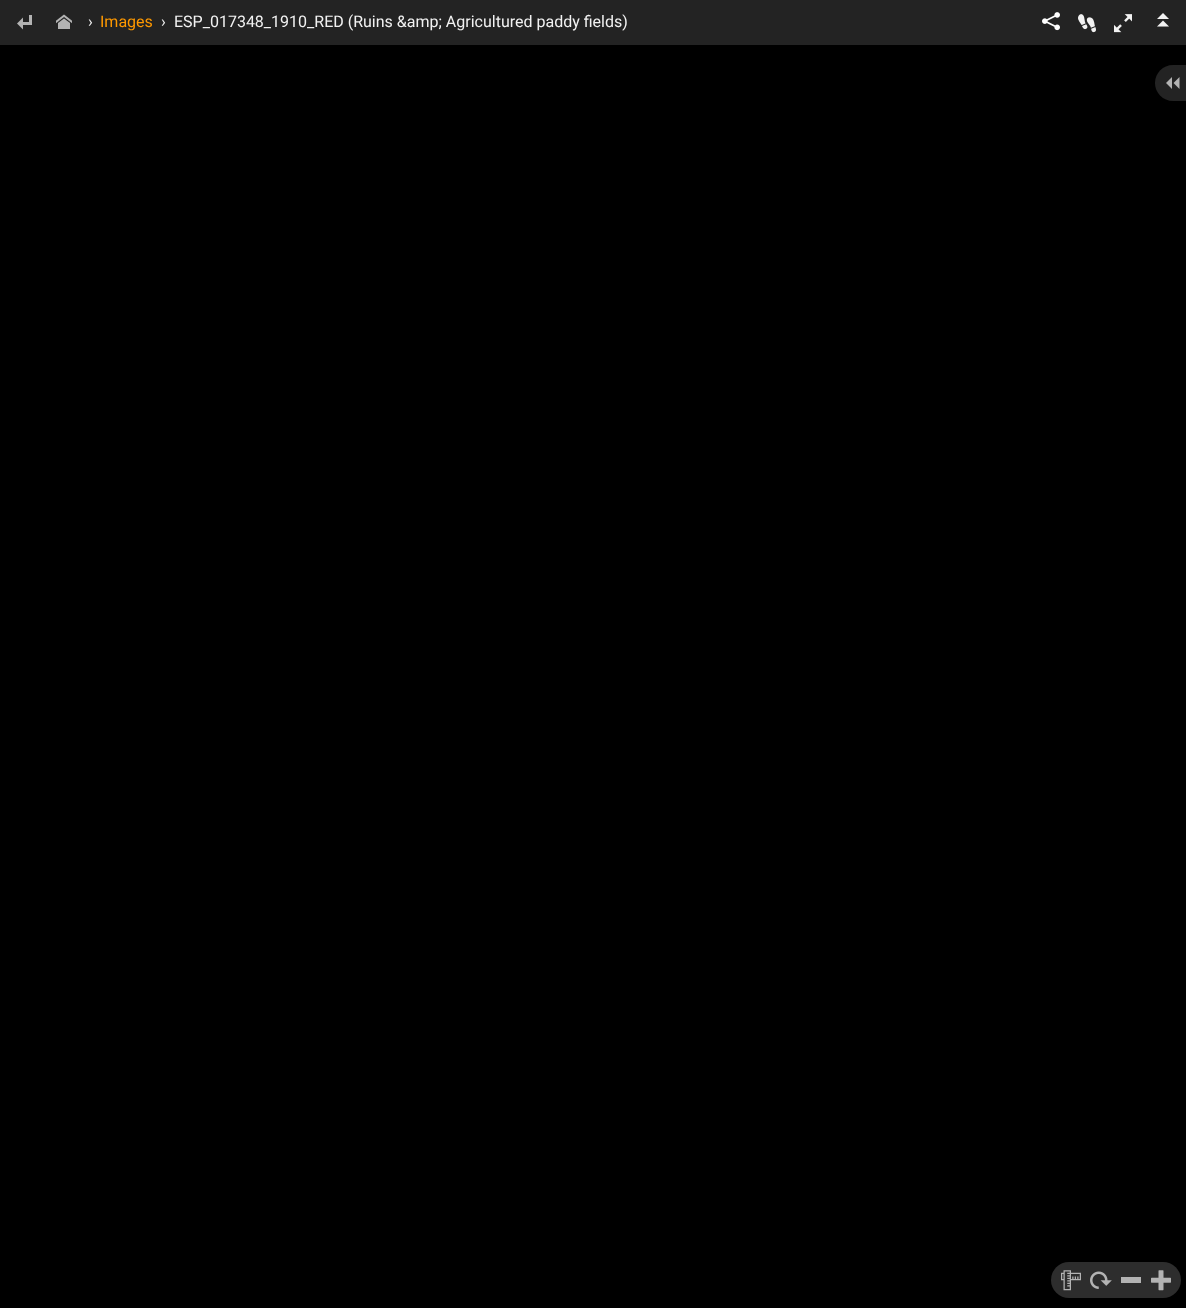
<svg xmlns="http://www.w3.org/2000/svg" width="1186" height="1308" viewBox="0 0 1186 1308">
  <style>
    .t1 { font: 16px Roboto; fill: #f2f2f2; }
    .t2 { font: 16px Roboto; fill: #f90; }
  </style>
  <rect width="100%" height="100%" fill="#000"/>
  <rect x="0" y="0" width="1186" height="45" fill="#232323"/>
  <image x="17" y="15" width="15" height="15" href="images/1.png"/>
  <image x="56" y="14" width="16" height="15" href="images/2.png"/>
  <text x="88" y="27" class="t1">›</text>
  <text x="100" y="27" class="t2">Images</text>
  <text x="161" y="27" class="t1">›</text>
  <text x="174" y="27" class="t1">ESP_017348_1910_RED (Ruins &amp;amp; Agricultured paddy fields)</text>
  <image x="1042" y="12" width="18" height="19" href="images/3.png"/>
  <image x="1078" y="14" width="18" height="19" href="images/4.png"/>
  <image x="1114" y="14" width="18" height="19" href="images/5.png"/>
  <image x="1157" y="13" width="12" height="14" href="images/6.png"/>
  <path d="M1173 65H1186V101H1173C1163 101 1155 93 1155 83C1155 73 1163 65 1173 65Z" fill="#232323"/>
  <image x="1166" y="77" width="14" height="12" href="images/7.png"/>
  <rect x="1051" y="1262" width="130" height="36" rx="18" fill="#2d2d2d"/>
  <image x="1061" y="1270" width="20" height="21" href="images/8.png"/>
  <image x="1090" y="1271" width="22" height="18" href="images/9.png"/>
  <rect x="1121" y="1277" width="20" height="6" fill="#b3b3b3"/>
  <image x="1151" y="1270" width="20" height="21" href="images/10.png"/>
</svg>
